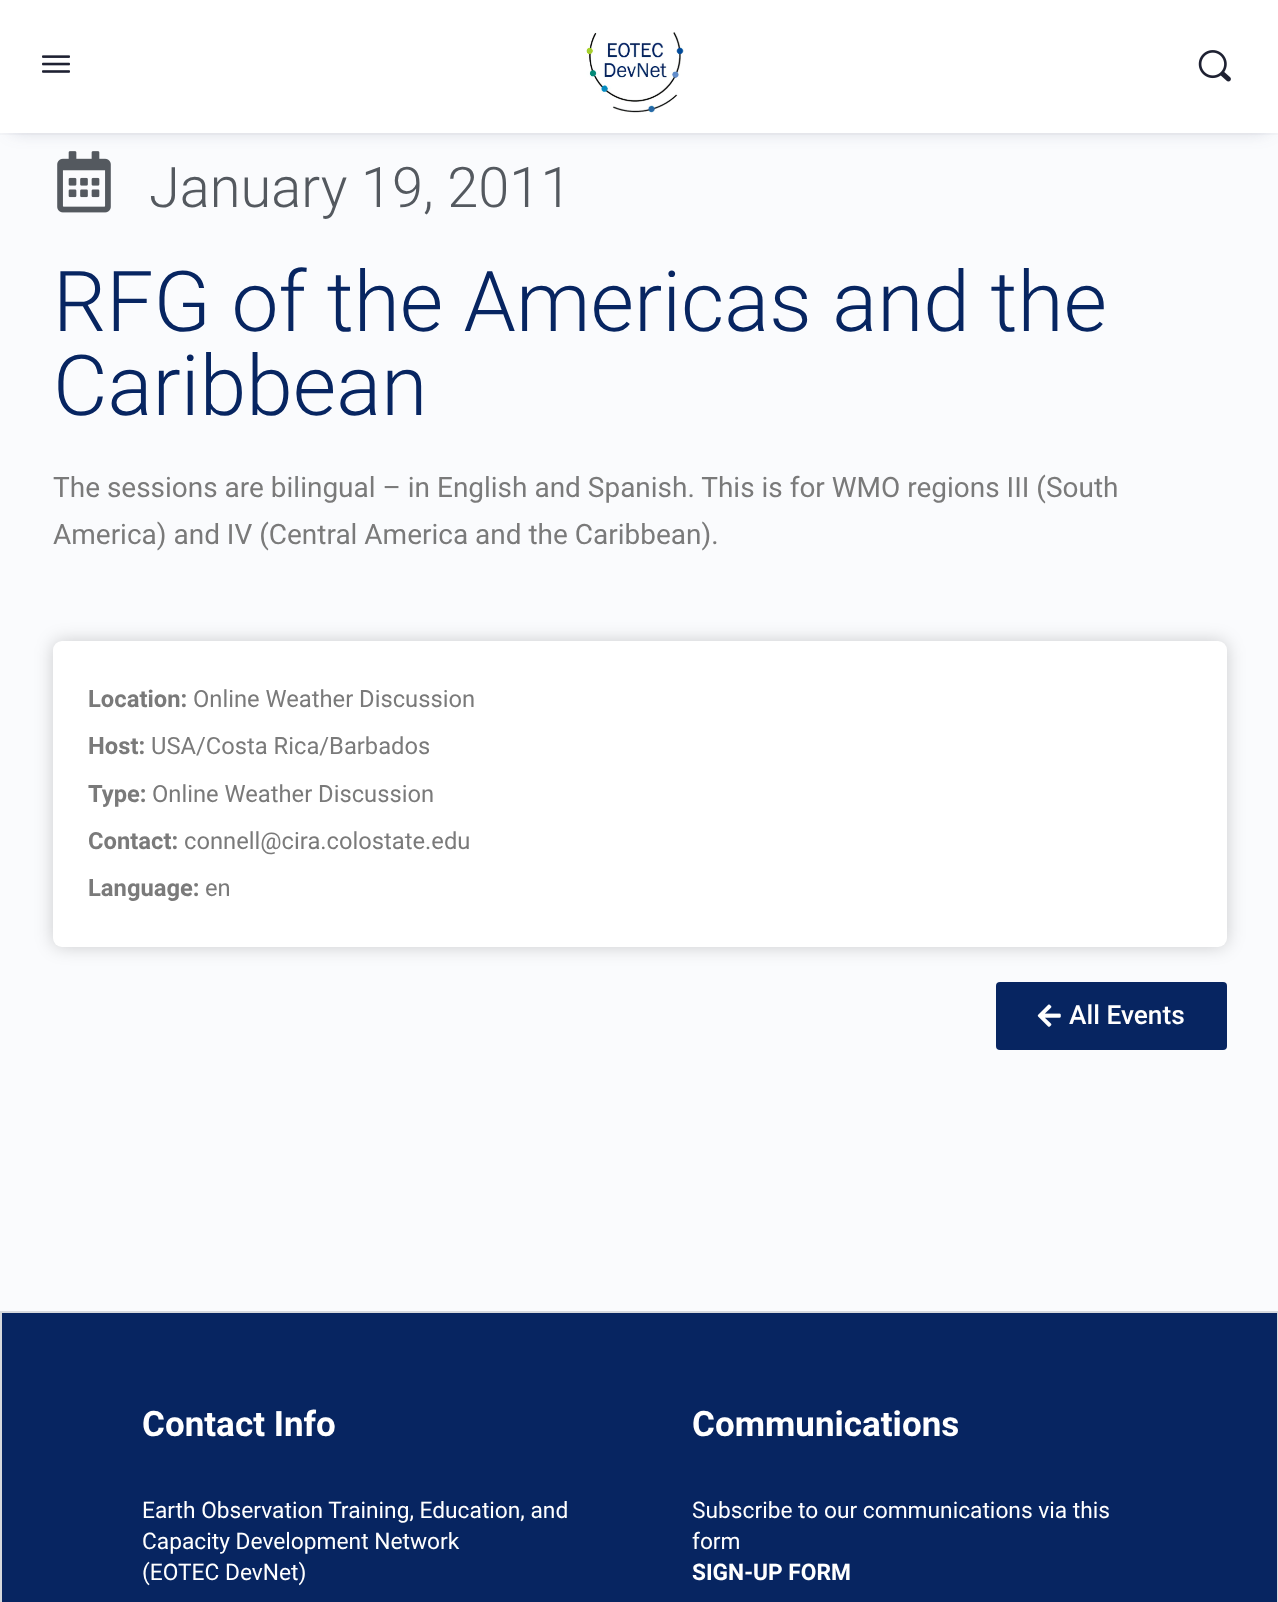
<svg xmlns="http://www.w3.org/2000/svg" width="1278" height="1602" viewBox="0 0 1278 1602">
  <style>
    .t1 { font: 300 56px Roboto; fill: #54595f; }
    .t2 { font: 300 84px Roboto; fill: #072561; }
    .t3 { font: 28px Roboto; fill: #7a7a7a; }
    .t4 { font: bold 23.75px Roboto; fill: #7a7a7a; }
    .t5 { font: 23.75px Roboto; fill: #7a7a7a; }
    .t6 { font: 500 26.25px Roboto; fill: #fff; }
    .t7 { font: bold 35px Roboto; fill: #fff; }
    .t8 { font: 22.75px Roboto; fill: #fff; }
    .t9 { font: bold 22.75px Roboto; fill: #fff; }
  </style>
  <rect width="100%" height="100%" fill="#fafbfd"/>
  <image x="57" y="151" width="54" height="62" href="images/4.png"/>
  <rect x="12" y="21" width="1255" height="109" fill="#41476c40" filter="blur(9px)"/>
  <rect x="0" y="133" width="1278" height="2" fill="#8b8d9d0d"/>
  <rect x="0" y="0" width="1278" height="133" fill="#fff"/>
  <image x="42" y="55" width="28" height="18" href="images/1.png"/>
  <image x="586" y="32" width="98" height="81" href="images/2.png"/>
  <image x="1198" y="50" width="33" height="32" href="images/3.png"/>
  <text x="149" y="207" class="t1">January 19, 2011</text>
  <text x="53" y="331" class="t2">RFG of the Americas and the</text>
  <text x="53" y="415" class="t2">Caribbean</text>
  <text x="53" y="497" class="t3">The sessions are bilingual – in English and Spanish. This is for WMO regions III (South</text>
  <text x="53" y="544" class="t3">America) and IV (Central America and the Caribbean).</text>
  <rect x="53" y="641" width="1174" height="306" rx="9" fill="#00000030" filter="blur(9px)"/>
  <rect x="53" y="641" width="1174" height="306" rx="9" fill="#fff"/>
  <text x="88" y="707" class="t4">Location:</text>
  <text x="193" y="707" class="t5">Online Weather Discussion</text>
  <text x="88" y="754" class="t4">Host:</text>
  <text x="151" y="754" class="t5">USA/Costa Rica/Barbados</text>
  <text x="88" y="802" class="t4">Type:</text>
  <text x="152" y="802" class="t5">Online Weather Discussion</text>
  <text x="88" y="849" class="t4">Contact:</text>
  <text x="184" y="849" class="t5">connell@cira.colostate.edu</text>
  <text x="88" y="896" class="t4">Language:</text>
  <text x="205" y="896" class="t5">en</text>
  <rect x="996" y="982" width="231" height="68" rx="4" fill="#072561"/>
  <image x="1037" y="1004" width="24" height="23" href="images/5.png"/>
  <text x="1069" y="1024" class="t6">All Events</text>
  <rect x="1" y="1312" width="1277" height="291" fill="#072561" stroke="#d6d9dd" stroke-width="2"/>
  <text x="142" y="1436" class="t7">Contact Info</text>
  <text x="142" y="1518" class="t8">Earth Observation Training, Education, and</text>
  <text x="142" y="1549" class="t8">Capacity Development Network</text>
  <text x="142" y="1580" class="t8">(EOTEC DevNet)</text>
  <text x="692" y="1436" class="t7">Communications</text>
  <text x="692" y="1518" class="t8">Subscribe to our communications via this</text>
  <text x="692" y="1549" class="t8">form</text>
  <text x="692" y="1580" class="t9">SIGN-UP FORM</text>
</svg>
